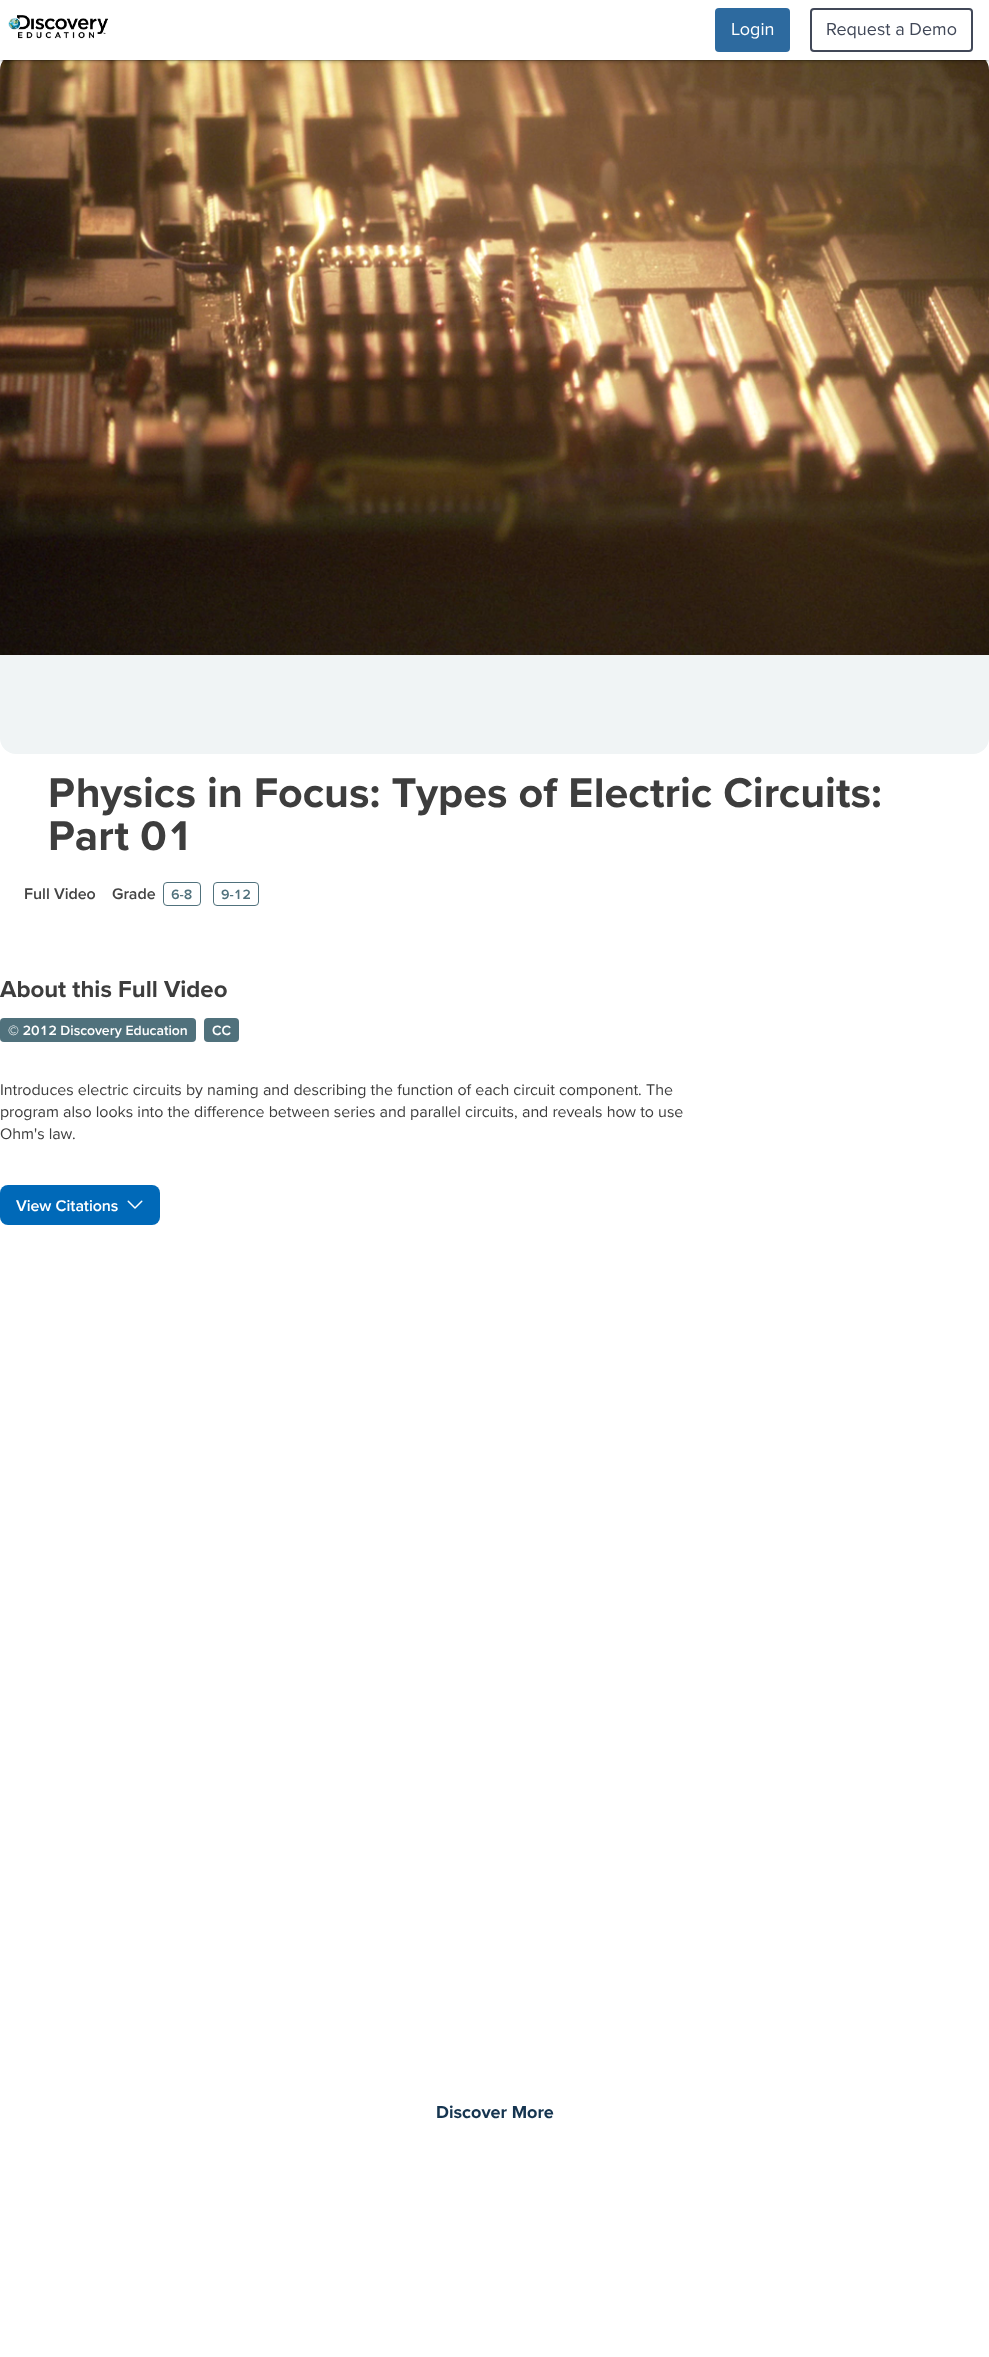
<svg xmlns="http://www.w3.org/2000/svg" width="989" height="2357" viewBox="0 0 989 2357">
  <style>
    .t1 { font: 18px 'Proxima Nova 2'; fill: #fff; }
    .t2 { font: 18px 'Proxima Nova 2'; fill: #414858; }
    .t3 { font: bold 43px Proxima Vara; fill: #3d3d3d; }
    .t4 { font: 600 16px Proxima Vara; fill: #444; }
    .t5 { font: 600 14px Proxima Vara; fill: #50717c; }
    .t6 { font: bold 24px Proxima Vara; fill: #3d3d3d; }
    .t7 { font: 600 14px Proxima Vara; fill: #fff; }
    .t8 { font: 16px Proxima Vara; fill: #3d3d3d; }
    .t9 { font: 600 16px Proxima Vara; fill: #fff; }
    .t10 { font: 18px Proxima Nova; fill: #163550; }
  </style>
  <rect width="100%" height="100%" fill="#fff"/>
  <rect x="0" y="54" width="989" height="700" rx="16" fill="#f0f4f5"/>
  <image x="0" y="60" width="989" height="595" href="images/2.png"/>
  <rect x="2" y="5" width="985" height="56" fill="#00000033" filter="blur(0.5px)"/>
  <rect x="0" y="1" width="989" height="60" fill="#0000001f" filter="blur(2.5px)"/>
  <rect x="0" y="2" width="989" height="60" fill="#00000024" filter="blur(1px)"/>
  <rect x="0" y="0" width="989" height="60" fill="#fff"/>
  <image x="8" y="15" width="100" height="24" href="images/1.png"/>
  <rect x="715" y="8" width="75" height="44" rx="4" fill="#2d6a9f"/>
  <text x="731" y="35" class="t1">Login</text>
  <rect x="811" y="9" width="161" height="42" rx="3" fill="none" stroke="#414858" stroke-width="2"/>
  <text x="826" y="35" class="t2">Request a Demo</text>
  <text x="48" y="807" class="t3">Physics in Focus: Types of Electric Circuits:</text>
  <text x="48" y="850" class="t3">Part 01</text>
  <text x="24" y="899" class="t4">Full Video</text>
  <text x="112" y="899" class="t4">Grade</text>
  <rect x="163.5" y="882.5" width="37" height="23" rx="3.5" fill="none" stroke="#50717c"/>
  <text x="171" y="899" class="t5">6-8</text>
  <rect x="213.5" y="882.5" width="45" height="23" rx="3.5" fill="none" stroke="#50717c"/>
  <text x="221" y="899" class="t5">9-12</text>
  <text x="0" y="997" class="t6">About this Full Video</text>
  <rect x="0" y="1018" width="196" height="24" rx="4" fill="#50717c"/>
  <text x="8" y="1035" class="t7">© 2012 Discovery Education</text>
  <rect x="204" y="1018" width="35" height="24" rx="4" fill="#50717c"/>
  <text x="212" y="1035" class="t7">CC</text>
  <text x="0" y="1095" class="t8">Introduces electric circuits by naming and describing the function of each circuit component. The</text>
  <text x="0" y="1117" class="t8">program also looks into the difference between series and parallel circuits, and reveals how to use</text>
  <text x="0" y="1139" class="t8">Ohm's law.</text>
  <rect x="0" y="1185" width="160" height="40" rx="8" fill="#0069b8"/>
  <text x="16" y="1211" class="t9">View Citations</text>
  <image x="127" y="1200" width="16" height="9" href="images/3.png"/>
  <text x="436" y="2118" class="t10">Discover More</text>
</svg>
